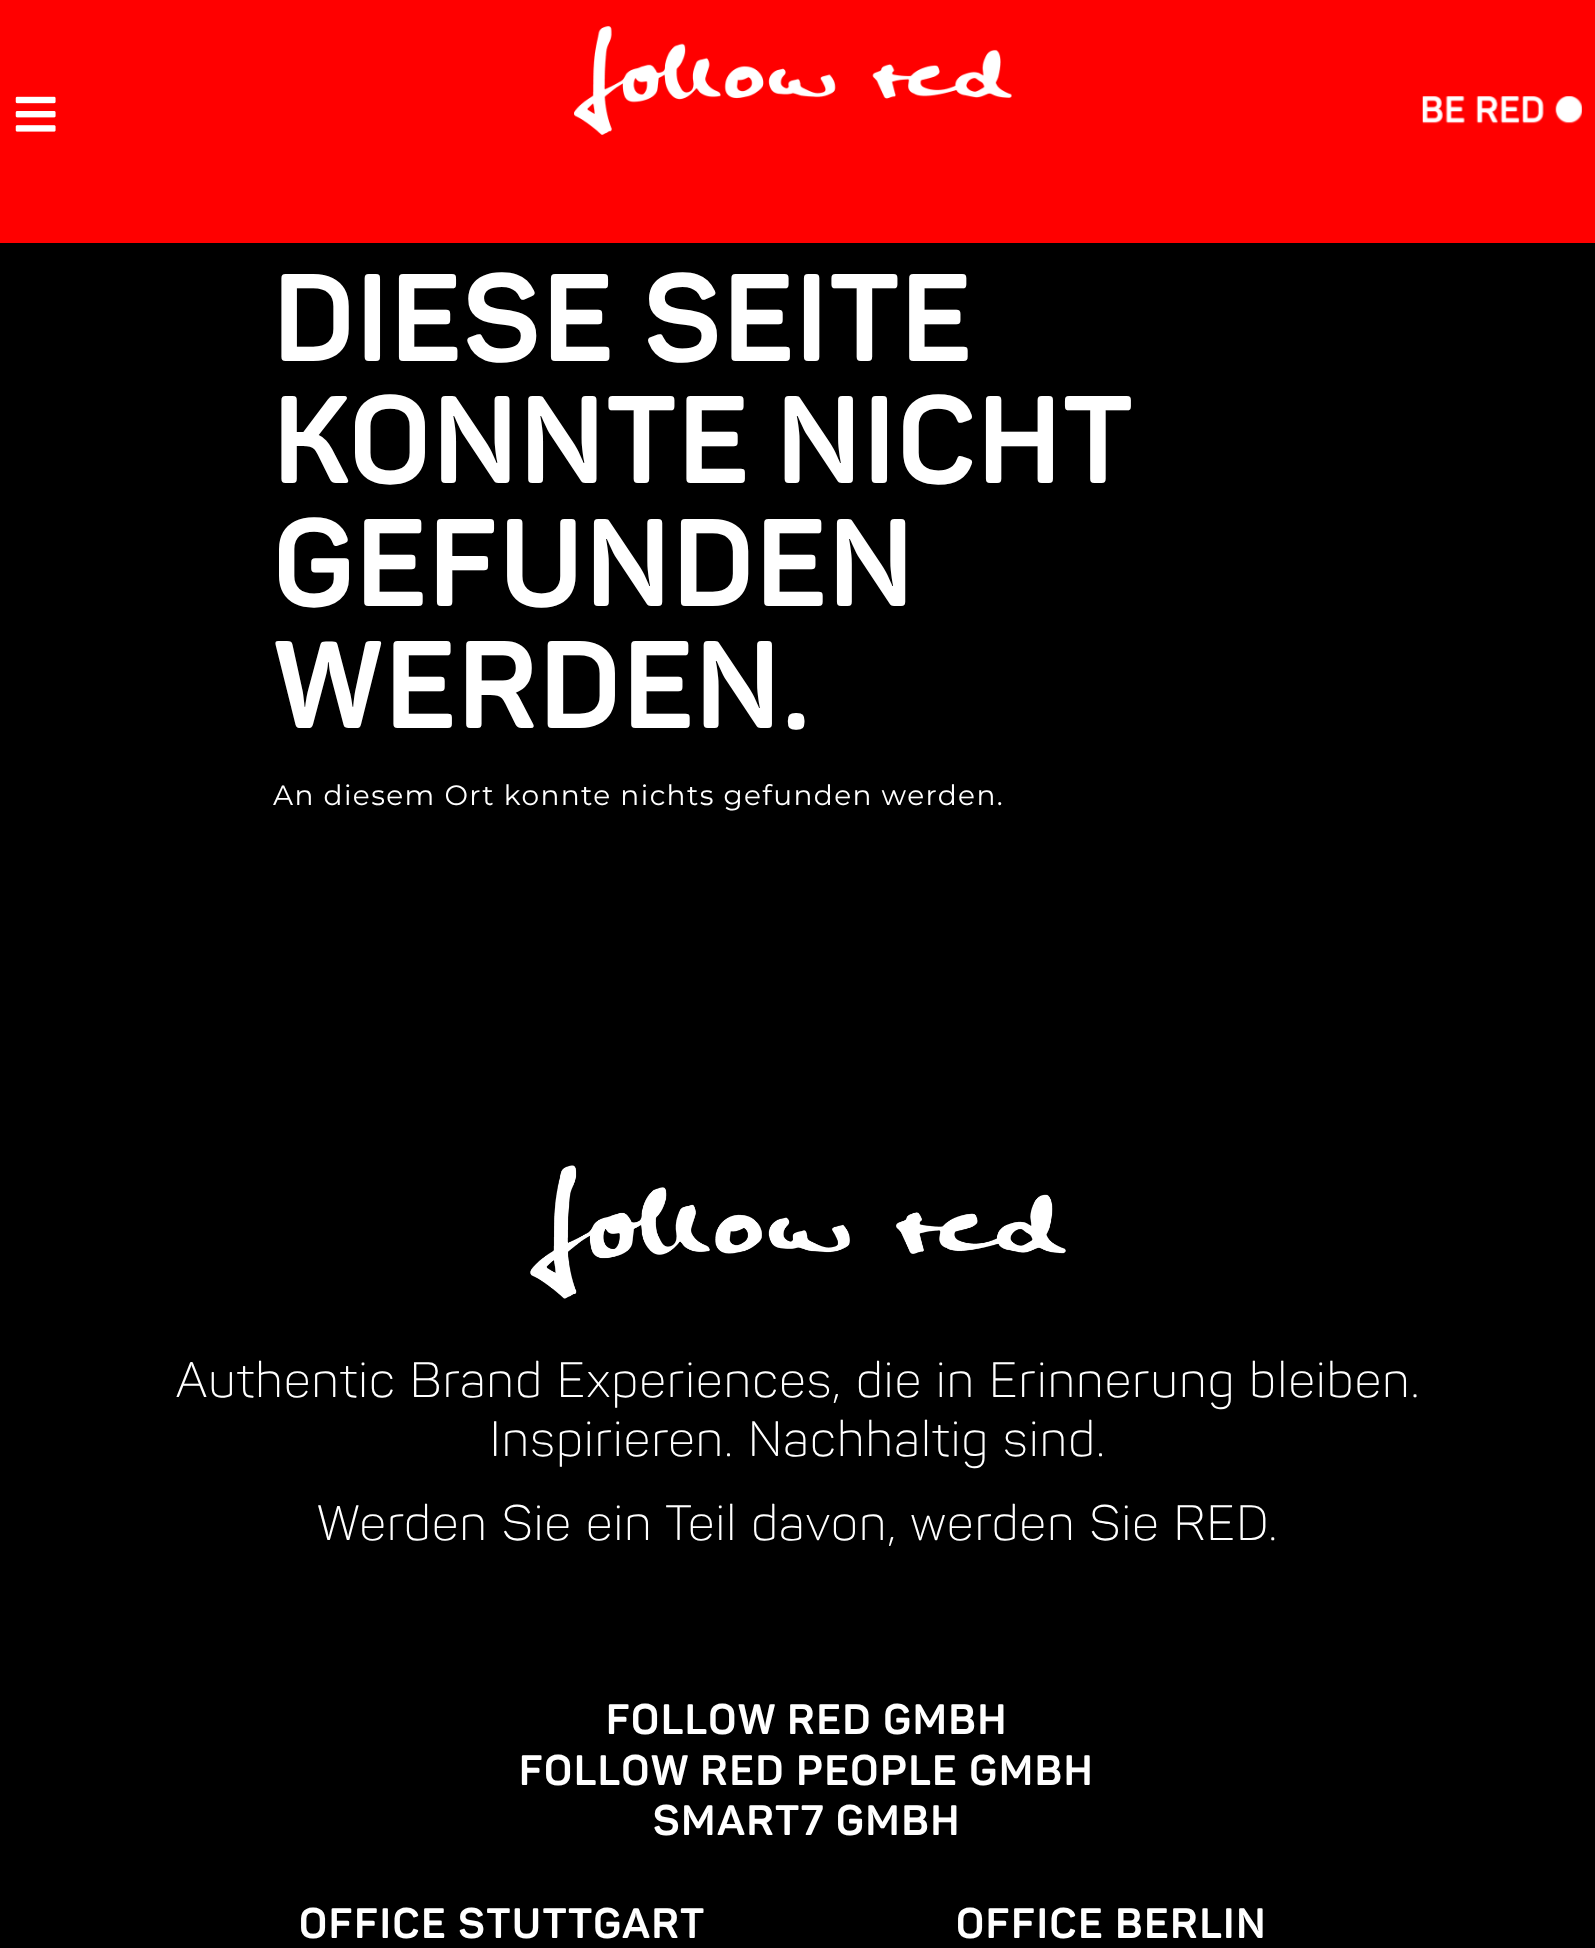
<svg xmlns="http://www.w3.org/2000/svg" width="1595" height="1948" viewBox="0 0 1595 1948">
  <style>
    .t1 { font: bold 122.5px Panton; letter-spacing: 1.75px; fill: #fff; }
    .t2 { font: 28px Montserrat; letter-spacing: 1.4px; fill: #fff; }
    .t3 { font: 300 49px Panton; letter-spacing: 1.75px; fill: #fff; }
    .t4 { font: bold 42px Panton; letter-spacing: 1.75px; fill: #fff; }
  </style>
  <rect width="100%" height="100%" fill="#000"/>
  <rect x="0" y="0" width="1595" height="243" fill="#f00"/>
  <image x="15" y="96" width="41" height="36" href="images/1.png"/>
  <image x="574" y="26" width="438" height="109" href="images/2.png"/>
  <image x="1422" y="96" width="160" height="28" href="images/3.png"/>
  <text x="273" y="361" class="t1">DIESE SEITE</text>
  <text x="273" y="483" word-spacing="-3" class="t1">KONNTE NICHT</text>
  <text x="273" y="606" class="t1">GEFUNDEN</text>
  <text x="273" y="728" class="t1">WERDEN.</text>
  <text x="273" y="805" class="t2">An diesem Ort konnte nichts gefunden werden.</text>
  <image x="530" y="1165" width="536" height="134" href="images/4.png"/>
  <text x="176" y="1397" class="t3">Authentic Brand Experiences, die in Erinnerung bleiben.</text>
  <text x="490" y="1456" class="t3">Inspirieren. Nachhaltig sind.</text>
  <text x="317" y="1540" class="t3">Werden Sie ein Teil davon, werden Sie RED.</text>
  <text x="606" y="1734" class="t4">FOLLOW RED GMBH</text>
  <text x="519" y="1785" class="t4">FOLLOW RED PEOPLE GMBH</text>
  <text x="653" y="1835" class="t4">SMART7 GMBH</text>
  <text x="299" y="1938" class="t4">OFFICE STUTTGART</text>
  <text x="956" y="1938" class="t4">OFFICE BERLIN</text>
</svg>
